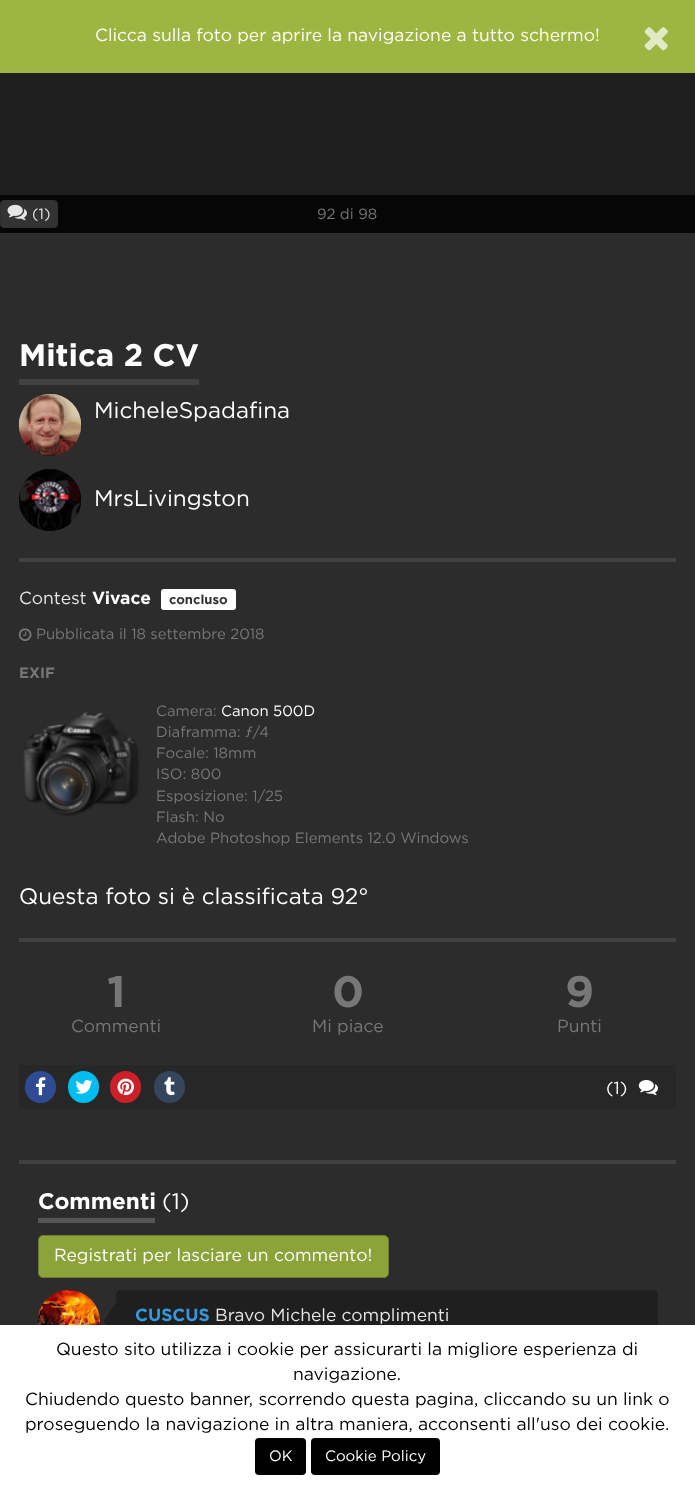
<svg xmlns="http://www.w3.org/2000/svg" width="695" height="1487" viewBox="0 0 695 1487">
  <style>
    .t1 { font: 17.5px Gotham; fill: #fff; }
    .t2 { font: 15px Gotham; fill: #e6e6e6; }
    .t3 { font: 14.9px Gotham; fill: #777; }
    .t4 { font: bold 31.25px Gotham; fill: #fff; }
    .t5 { font: 22.5px Gotham; fill: #fff; }
    .t6 { font: 17.5px Gotham; fill: #e6e6e6; }
    .t7 { font: bold 17.5px Gotham; fill: #fff; }
    .t8 { font: bold 13px Gotham; fill: #333; }
    .t9 { font: bold 14.9px Gotham; fill: #777; }
    .t10 { font: 14.9px Gotham; fill: #fff; }
    .t11 { font: bold 44px Gotham; fill: #777; }
    .t12 { font: 17.5px Gotham; fill: #777; }
    .t13 { font: bold 22.5px Gotham; fill: #fff; }
    .t14 { font: bold 17.5px Gotham; fill: #3498db; }
    .t15 { font: 17.5px Gotham; fill: #000; }
    .t16 { font: 15px Gotham; fill: #fff; }
  </style>
  <rect width="100%" height="100%" fill="#2c2c2c"/>
  <rect x="0" y="0" width="695" height="73" fill="#9cb641"/>
  <text x="95" y="41" class="t1">Clicca sulla foto per aprire la navigazione a tutto schermo!</text>
  <image x="644" y="27" width="24" height="24" href="images/1.png"/>
  <rect x="0" y="73" width="695" height="122" fill="#1f1f1f"/>
  <rect x="0" y="195" width="695" height="38" fill="#060606"/>
  <rect x="0.5" y="200.5" width="57" height="27" rx="3.5" fill="#333" stroke="#303030"/>
  <image x="7" y="204" width="20" height="17" href="images/2.png"/>
  <text x="32" y="219" class="t2">(1)</text>
  <text x="317" y="219" class="t3">92 di 98</text>
  <text x="19" y="366" class="t4">Mitica 2 CV</text>
  <rect x="19" y="379" width="180" height="6" fill="#414141"/>
  <image x="18" y="393" width="64" height="63" href="images/3.png"/>
  <text x="94" y="418" class="t5">MicheleSpadafina</text>
  <image x="19" y="469" width="62" height="62" href="images/4.png"/>
  <text x="94" y="506" class="t5">MrsLivingston</text>
  <rect x="19" y="558" width="657" height="4" fill="#414141"/>
  <text x="19" y="604" class="t6">Contest</text>
  <text x="92" y="604" class="t7">Vivace</text>
  <rect x="161" y="589" width="75" height="21" rx="3" fill="#fff"/>
  <text x="169" y="604" class="t8">concluso</text>
  <image x="18" y="628" width="14" height="13" href="images/5.png"/>
  <text x="36" y="639" class="t3">Pubblicata il 18 settembre 2018</text>
  <text x="19" y="678" class="t9">EXIF</text>
  <image x="23" y="712" width="116" height="104" href="images/6.png"/>
  <text x="156" y="716" class="t3">Camera:</text>
  <text x="221" y="716" class="t10">Canon 500D</text>
  <text x="156" y="737" class="t3">Diaframma: ƒ/4</text>
  <text x="156" y="758" class="t3">Focale: 18mm</text>
  <text x="156" y="779" class="t3">ISO: 800</text>
  <text x="156" y="801" class="t3">Esposizione: 1/25</text>
  <text x="156" y="822" class="t3">Flash: No</text>
  <text x="156" y="843" class="t3">Adobe Photoshop Elements 12.0 Windows</text>
  <text x="19" y="904" class="t5">Questa foto si è classificata 92°</text>
  <rect x="19" y="938" width="657" height="4" fill="#414141"/>
  <text x="107" y="1007" class="t11">1</text>
  <text x="71" y="1032" class="t12">Commenti</text>
  <text x="332" y="1007" class="t11">0</text>
  <text x="312" y="1032" class="t12">Mi piace</text>
  <text x="565" y="1007" class="t11">9</text>
  <text x="557" y="1032" class="t12">Punti</text>
  <rect x="19" y="1065" width="657" height="44" fill="#272727"/>
  <rect x="25" y="1071" width="31" height="32" rx="15.5" fill="#2f4b93"/>
  <image x="36" y="1077" width="10" height="19" href="images/7.png"/>
  <rect x="68" y="1071" width="31" height="32" rx="15.5" fill="#00bdef"/>
  <image x="75" y="1080" width="18" height="14" href="images/8.png"/>
  <rect x="110" y="1071" width="31" height="32" rx="15.5" fill="#cb2027"/>
  <image x="117" y="1078" width="17" height="18" href="images/9.png"/>
  <rect x="154" y="1071" width="31" height="32" rx="15.5" fill="#35465c"/>
  <image x="164" y="1077" width="11" height="19" href="images/10.png"/>
  <text x="606" y="1094" class="t1">(1)</text>
  <image x="638" y="1080" width="20" height="16" href="images/11.png"/>
  <rect x="19" y="1160" width="657" height="4" fill="#414141"/>
  <text x="38" y="1209" class="t13">Commenti</text>
  <rect x="38" y="1218" width="117" height="5" fill="#565656"/>
  <text x="162" y="1209" class="t5">(1)</text>
  <rect x="38.5" y="1235.5" width="350" height="42" rx="4.5" fill="#8ca33a" stroke="#6c7e2d"/>
  <text x="54" y="1261" class="t1">Registrati per lasciare un commento!</text>
  <image x="37" y="1290" width="63" height="35" href="images/12.png"/>
  <rect x="116" y="1290" width="542" height="83" rx="5" fill="#1f1f1f"/>
  <path d="M116 1302.5V1340L104 1321Z" fill="#1f1f1f"/>
  <text x="135" y="1321" class="t14">CUSCUS</text>
  <text x="215" y="1321" class="t6">Bravo Michele complimenti</text>
  <rect x="0" y="1325" width="695" height="162" fill="#fff"/>
  <text x="56" y="1355" class="t15">Questo sito utilizza i cookie per assicurarti la migliore esperienza di</text>
  <text x="293" y="1380" class="t15">navigazione.</text>
  <text x="25" y="1405" class="t15">Chiudendo questo banner, scorrendo questa pagina, cliccando su un link o</text>
  <text x="25" y="1430" class="t15">proseguendo la navigazione in altra maniera, acconsenti all'uso dei cookie.</text>
  <rect x="255" y="1438" width="51" height="37" rx="4" fill="#000"/>
  <text x="269" y="1461" class="t16">OK</text>
  <rect x="311" y="1438" width="129" height="37" rx="4" fill="#000"/>
  <text x="325" y="1461" class="t16">Cookie Policy</text>
</svg>
